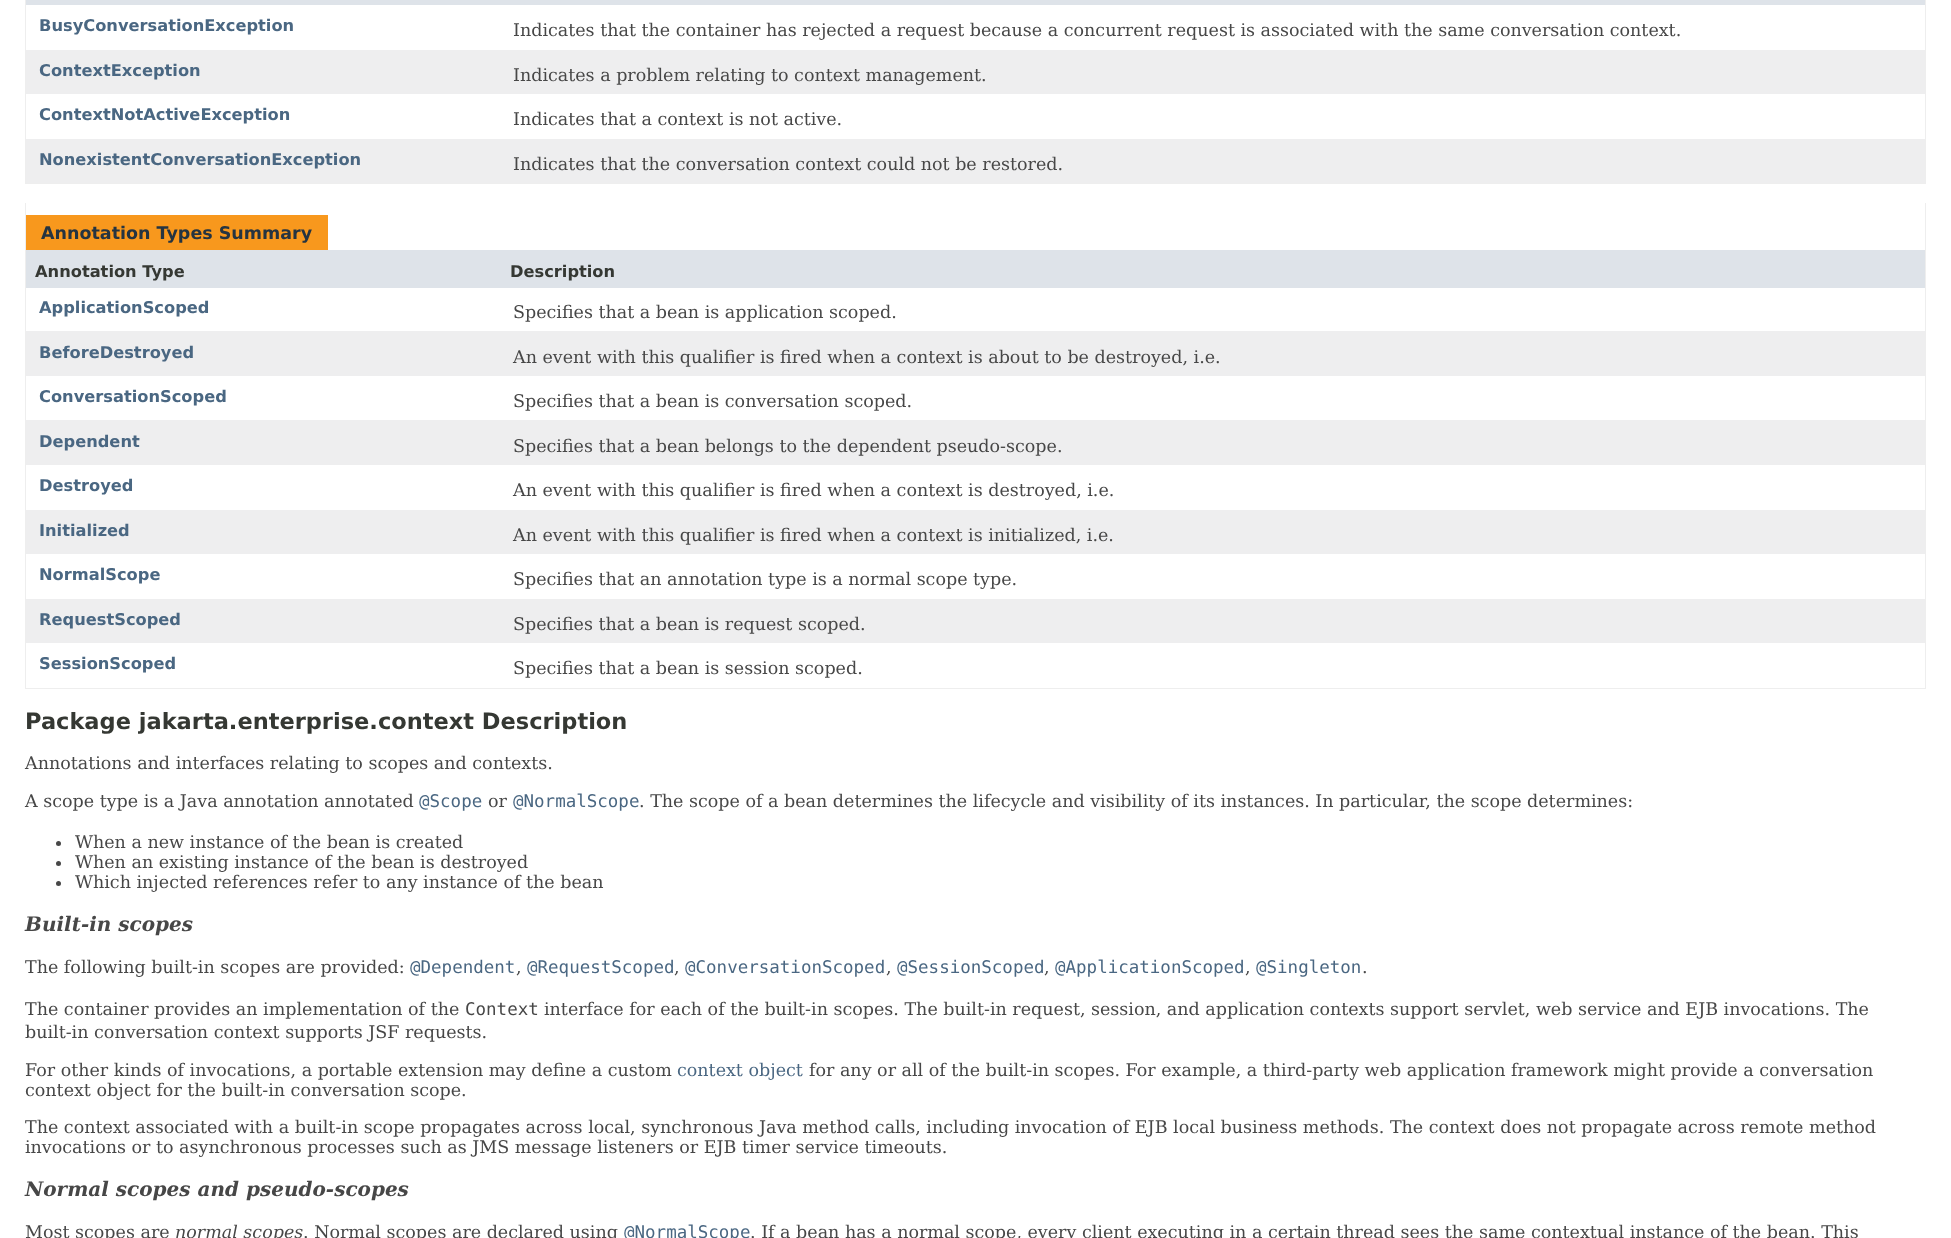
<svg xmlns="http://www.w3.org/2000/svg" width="1951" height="1238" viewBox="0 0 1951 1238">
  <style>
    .t1 { font: bold 16.25px DejaVu Sans; fill: #4a6782; }
    .t2 { font: 17.5px DejaVu Serif; fill: #474747; }
    .t3 { font: bold 17.5px DejaVu Sans; fill: #253441; }
    .t4 { font: bold 16.25px DejaVu Sans; fill: #353833; }
    .t5 { font: bold 22.5px DejaVu Sans; fill: #353833; }
    .t6 { font: 17.5px DejaVu Sans Mono; fill: #4a6782; }
    .t7 { font: italic bold 20px DejaVu Serif; fill: #474747; }
    .t8 { font: 17.5px DejaVu Sans Mono; fill: #474747; }
    .t9 { font: 17.5px DejaVu Serif; fill: #4a6782; }
    .t10 { font: italic 17.5px DejaVu Serif; fill: #474747; }
  </style>
  <rect width="100%" height="100%" fill="#fff"/>
  <rect x="1925" y="0" width="1" height="184" fill="#eee"/>
  <rect x="25" y="183" width="1901" height="1" fill="#eee"/>
  <rect x="25" y="0" width="1" height="184" fill="#eee"/>
  <rect x="26" y="0" width="1899" height="5" fill="#dee3e9"/>
  <text x="39" y="31" class="t1">BusyConversationException</text>
  <text x="513" y="36" class="t2">Indicates that the container has rejected a request because a concurrent request is associated with the same conversation context.</text>
  <rect x="26" y="50" width="1899" height="44" fill="#eeeeef"/>
  <text x="39" y="76" class="t1">ContextException</text>
  <text x="513" y="81" class="t2">Indicates a problem relating to context management.</text>
  <text x="39" y="120" class="t1">ContextNotActiveException</text>
  <text x="513" y="125" class="t2">Indicates that a context is not active.</text>
  <rect x="26" y="139" width="1899" height="44" fill="#eeeeef"/>
  <text x="39" y="165" class="t1">NonexistentConversationException</text>
  <text x="513" y="170" class="t2">Indicates that the conversation context could not be restored.</text>
  <rect x="1925" y="203" width="1" height="486" fill="#eee"/>
  <rect x="25" y="688" width="1901" height="1" fill="#eee"/>
  <rect x="25" y="203" width="1" height="486" fill="#eee"/>
  <rect x="26" y="215" width="302" height="35" fill="#f8981d"/>
  <text x="41" y="239" class="t3">Annotation Types Summary</text>
  <rect x="26" y="250" width="1899" height="38" fill="#dee3e9"/>
  <text x="35" y="277" class="t4">Annotation Type</text>
  <text x="510" y="277" class="t4">Description</text>
  <text x="39" y="313" class="t1">ApplicationScoped</text>
  <text x="513" y="318" class="t2">Specifies that a bean is application scoped.</text>
  <rect x="26" y="331" width="1899" height="45" fill="#eeeeef"/>
  <text x="39" y="358" class="t1">BeforeDestroyed</text>
  <text x="513" y="363" class="t2">An event with this qualifier is fired when a context is about to be destroyed, i.e.</text>
  <text x="39" y="402" class="t1">ConversationScoped</text>
  <text x="513" y="407" class="t2">Specifies that a bean is conversation scoped.</text>
  <rect x="26" y="420" width="1899" height="45" fill="#eeeeef"/>
  <text x="39" y="447" class="t1">Dependent</text>
  <text x="513" y="452" class="t2">Specifies that a bean belongs to the dependent pseudo-scope.</text>
  <text x="39" y="491" class="t1">Destroyed</text>
  <text x="513" y="496" class="t2">An event with this qualifier is fired when a context is destroyed, i.e.</text>
  <rect x="26" y="510" width="1899" height="44" fill="#eeeeef"/>
  <text x="39" y="536" class="t1">Initialized</text>
  <text x="513" y="541" class="t2">An event with this qualifier is fired when a context is initialized, i.e.</text>
  <text x="39" y="580" class="t1">NormalScope</text>
  <text x="513" y="585" class="t2">Specifies that an annotation type is a normal scope type.</text>
  <rect x="26" y="599" width="1899" height="44" fill="#eeeeef"/>
  <text x="39" y="625" class="t1">RequestScoped</text>
  <text x="513" y="630" class="t2">Specifies that a bean is request scoped.</text>
  <text x="39" y="669" class="t1">SessionScoped</text>
  <text x="513" y="674" class="t2">Specifies that a bean is session scoped.</text>
  <text x="25" y="729" class="t5">Package jakarta.enterprise.context Description</text>
  <text x="25" y="769" class="t2">Annotations and interfaces relating to scopes and contexts.</text>
  <text x="25" y="807" class="t2">A scope type is a Java annotation annotated</text>
  <text x="419" y="807" class="t6">@Scope</text>
  <text x="488" y="807" class="t2">or</text>
  <text x="513" y="807" class="t6">@NormalScope</text>
  <text x="639" y="807" class="t2">. The scope of a bean determines the lifecycle and visibility of its instances. In particular, the scope determines:</text>
  <circle cx="58.5" cy="843.5" r="2.5" fill="#474747"/>
  <text x="75" y="848" class="t2">When a new instance of the bean is created</text>
  <circle cx="58.5" cy="863.5" r="2.5" fill="#474747"/>
  <text x="75" y="868" class="t2">When an existing instance of the bean is destroyed</text>
  <circle cx="58.5" cy="883.5" r="2.5" fill="#474747"/>
  <text x="75" y="888" class="t2">Which injected references refer to any instance of the bean</text>
  <text x="25" y="931" class="t7">Built-in scopes</text>
  <text x="25" y="973" class="t2">The following built-in scopes are provided:</text>
  <text x="410" y="973" class="t6">@Dependent</text>
  <text x="516" y="973" class="t2">,</text>
  <text x="527" y="973" class="t6">@RequestScoped</text>
  <text x="674" y="973" class="t2">,</text>
  <text x="685" y="973" class="t6">@ConversationScoped</text>
  <text x="886" y="973" class="t2">,</text>
  <text x="897" y="973" class="t6">@SessionScoped</text>
  <text x="1044" y="973" class="t2">,</text>
  <text x="1055" y="973" class="t6">@ApplicationScoped</text>
  <text x="1245" y="973" class="t2">,</text>
  <text x="1256" y="973" class="t6">@Singleton</text>
  <text x="1362" y="973" class="t2">.</text>
  <text x="25" y="1015" class="t2">The container provides an implementation of the</text>
  <text x="465" y="1015" class="t8">Context</text>
  <text x="544" y="1015" class="t2">interface for each of the built-in scopes. The built-in request, session, and application contexts support servlet, web service and EJB invocations. The</text>
  <text x="25" y="1038" class="t2">built-in conversation context supports JSF requests.</text>
  <text x="25" y="1076" class="t2">For other kinds of invocations, a portable extension may define a custom</text>
  <text x="677" y="1076" class="t9">context object</text>
  <text x="809" y="1076" class="t2">for any or all of the built-in scopes. For example, a third-party web application framework might provide a conversation</text>
  <text x="25" y="1096" class="t2">context object for the built-in conversation scope.</text>
  <text x="25" y="1133" class="t2">The context associated with a built-in scope propagates across local, synchronous Java method calls, including invocation of EJB local business methods. The context does not propagate across remote method</text>
  <text x="25" y="1153" class="t2">invocations or to asynchronous processes such as JMS message listeners or EJB timer service timeouts.</text>
  <text x="25" y="1196" class="t7">Normal scopes and pseudo-scopes</text>
  <text x="25" y="1238" class="t2">Most scopes are</text>
  <text x="175" y="1238" class="t10">normal scopes</text>
  <text x="303" y="1238" class="t2">. Normal scopes are declared using</text>
  <text x="624" y="1238" class="t6">@NormalScope</text>
  <text x="750" y="1238" class="t2">. If a bean has a normal scope, every client executing in a certain thread sees the same contextual instance of the bean. This</text>
</svg>
